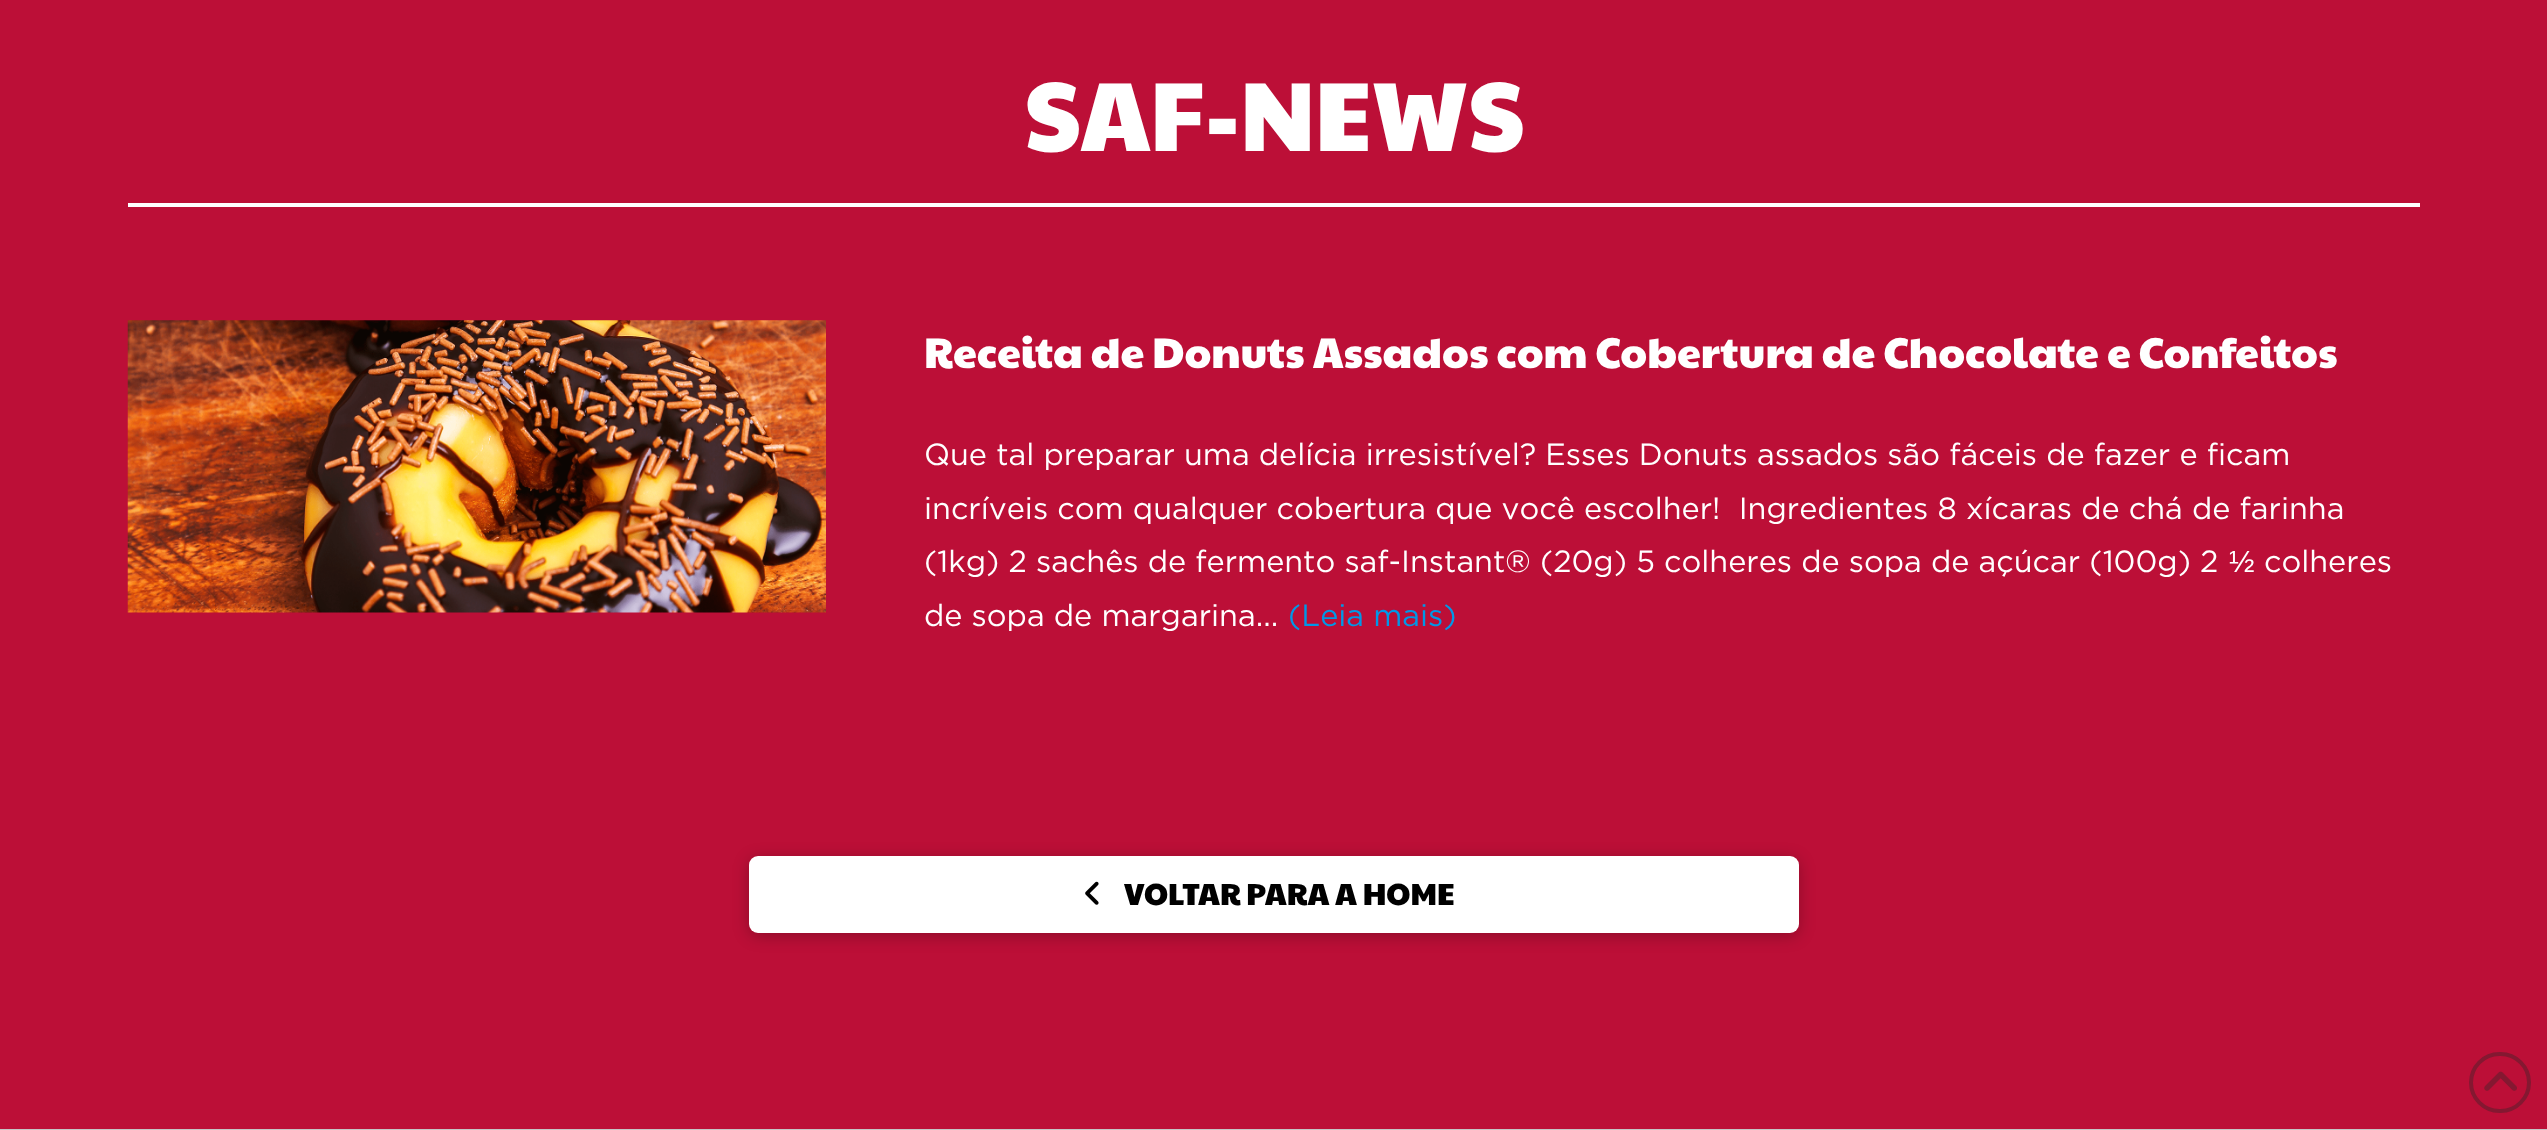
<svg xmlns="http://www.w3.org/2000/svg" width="2547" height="1130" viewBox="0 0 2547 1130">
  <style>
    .t1 { font: 98px Paytone One; fill: #fff; }
    .t2 { font: 42.9px Paytone One; fill: #fff; }
    .t3 { font: 30.6px Gotham; fill: #fff; }
    .t4 { font: 30.6px Liberation Sans; fill: #fff; }
    .t5 { font: 30.6px Gotham; fill: #0098e7; }
    .t6 { font: 30.6px Paytone One; fill: #000; }
  </style>
  <rect width="100%" height="100%" fill="#bc0f37"/>
  <rect x="128" y="203" width="2292" height="4" fill="#fff"/>
  <text x="1025" y="151" class="t1">SAF-NEWS</text>
  <image x="127" y="320" width="699" height="293" href="images/1.png"/>
  <text x="924" y="368" class="t2">Receita de Donuts Assados com Cobertura de Chocolate e Confeitos</text>
  <text x="924" y="465" class="t3">Que tal preparar uma delícia irresistível? Esses Donuts assados são fáceis de fazer e ficam</text>
  <text x="924" y="519" class="t3" xml:space="preserve">incríveis com qualquer cobertura que você escolher!  Ingredientes 8 xícaras de chá de farinha</text>
  <text x="924" y="572" class="t3">(1kg) 2 sachês de fermento saf-Instant® (20g) 5 colheres de sopa de açúcar (100g) 2</text>
  <text x="2229" y="572" class="t4">½</text>
  <text x="2264" y="572" class="t3">colheres</text>
  <text x="924" y="626" class="t3">de sopa de margarina...</text>
  <text x="1288" y="626" class="t5">(Leia mais)</text>
  <rect x="749" y="859" width="1050" height="77" rx="9" fill="#00000040" filter="blur(8px)"/>
  <rect x="749" y="856" width="1050" height="77" rx="9" fill="#fff"/>
  <image x="1085" y="881" width="14" height="24" href="images/2.png"/>
  <text x="1124" y="905" class="t6">VOLTAR PARA A HOME</text>
  <rect x="0" y="1129" width="2547" height="1" fill="#c5c5c5"/>
  <rect x="2471" y="1054" width="58" height="57" rx="28.5" fill="none" stroke="#841831" stroke-width="4"/>
  <image x="2484" y="1071" width="33" height="20" href="images/3.png"/>
</svg>
